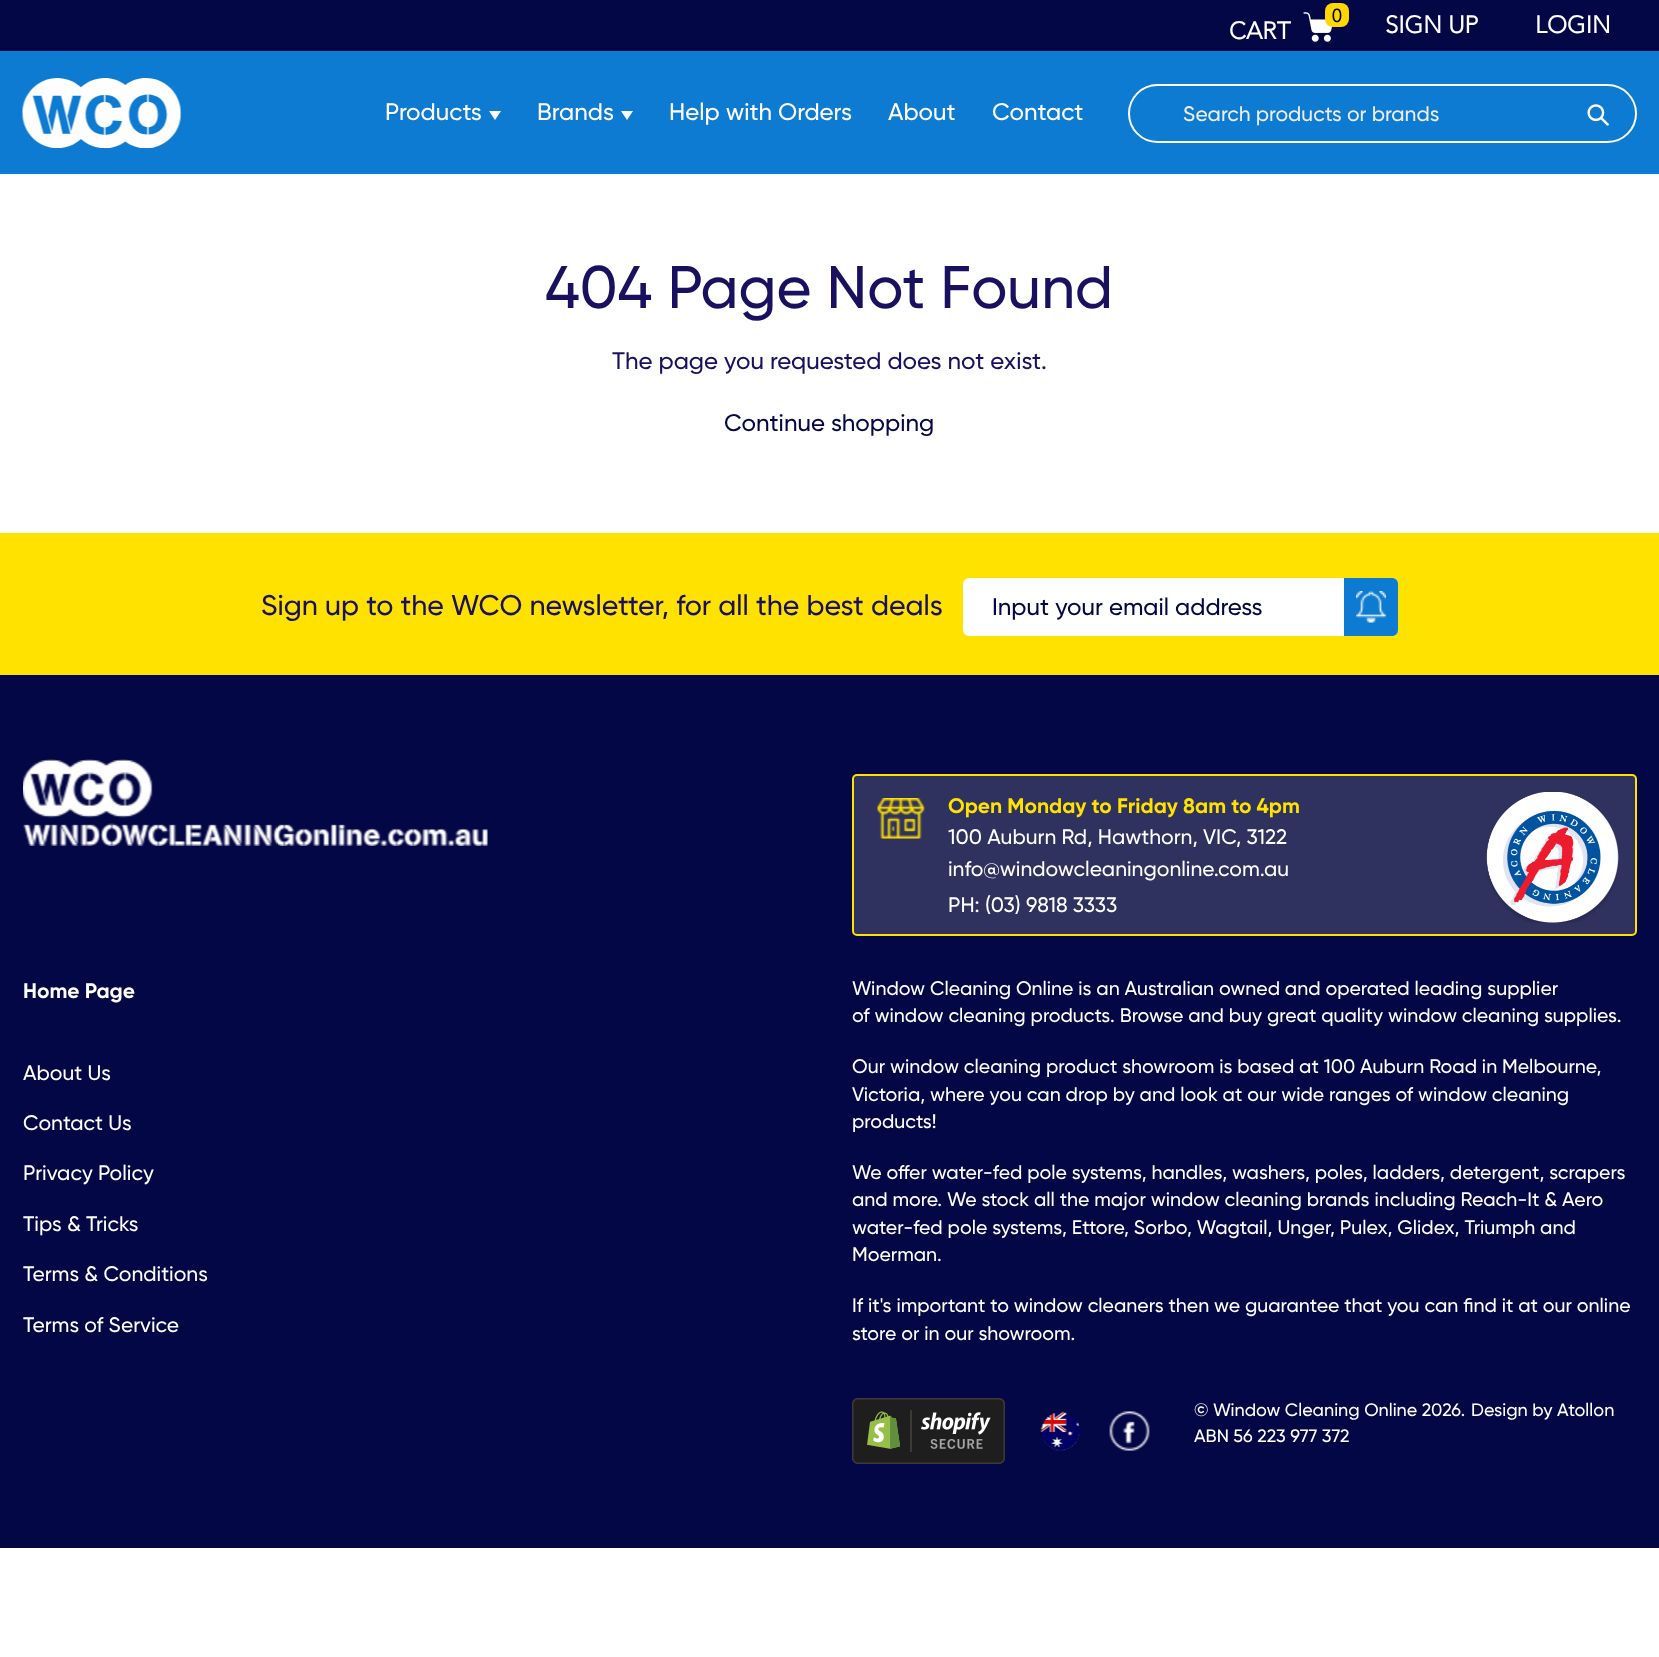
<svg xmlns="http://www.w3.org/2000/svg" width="1659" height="1657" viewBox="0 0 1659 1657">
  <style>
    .t1 { font: bold 18px Avenir; fill: #000; }
    .t2 { font: bold 24px Avenir; fill: #fff; }
    .t3 { font: 500 24px Gilroy; fill: #fff; }
    .t4 { font: 500 21px Gilroy; fill: #eee; }
    .t5 { font: 500 60px Gilroy; fill: #19105f; }
    .t6 { font: 500 24px Gilroy; fill: #19105f; }
    .t7 { font: 500 24px Gilroy; fill: #040745; }
    .t8 { font: 500 28.5px Gilroy; fill: #19105f; }
    .t9 { font: bold 21px Gilroy; fill: #fff; }
    .t10 { font: 500 21px Gilroy; fill: #fff; }
    .t11 { font: bold 21px Gilroy; fill: #ffe200; }
    .t12 { font: 500 19.5px Gilroy; fill: #fff; }
    .t13 { font: 500 18px Gilroy; fill: #fff; }
  </style>
  <rect width="100%" height="100%" fill="#fff"/>
  <rect x="0" y="0" width="1659" height="51" fill="#040745"/>
  <image x="1303" y="12" width="30" height="30" href="images/1.png"/>
  <rect x="1325" y="3" width="24" height="24" rx="8" fill="#ffd700"/>
  <text x="1332" y="22" class="t1">0</text>
  <text x="1229" y="39" class="t2">CART</text>
  <text x="1385" y="33" class="t2">SIGN UP</text>
  <text x="1535" y="33" class="t2">LOGIN</text>
  <rect x="0" y="51" width="1659" height="123" fill="#0e7bd3"/>
  <image x="22" y="78" width="160" height="71" href="images/2.png"/>
  <text x="385" y="120" class="t3">Products</text>
  <path d="M489 111H501L495 120Z" fill="#fff"/>
  <text x="537" y="120" class="t3">Brands</text>
  <path d="M621 111H633L627 120Z" fill="#fff"/>
  <text x="669" y="120" class="t3">Help with Orders</text>
  <text x="888" y="120" class="t3">About</text>
  <text x="992" y="120" class="t3">Contact</text>
  <rect x="1129" y="85" width="507" height="57" rx="28.5" fill="none" stroke="#fff" stroke-width="2"/>
  <text x="1183" y="121" class="t4">Search products or brands</text>
  <image x="1587" y="104" width="22" height="22" href="images/3.png"/>
  <text x="545" y="308" class="t5">404 Page Not Found</text>
  <text x="612" y="369" class="t6">The page you requested does not exist.</text>
  <text x="724" y="431" class="t7">Continue shopping</text>
  <rect x="0" y="675" width="1659" height="873" fill="#040745"/>
  <rect x="0" y="533" width="1659" height="142" fill="#ffe200"/>
  <text x="261" y="615" class="t8">Sign up to the WCO newsletter, for all the best deals</text>
  <rect x="964" y="579" width="433" height="56" rx="5" fill="#fff" stroke="#fff" stroke-width="2"/>
  <text x="992" y="615" class="t7">Input your email address</text>
  <path d="M1344 578H1392C1395.5 578 1398 580.5 1398 584V630C1398 633.5 1395.5 636 1392 636H1344Z" fill="#0e7bd3"/>
  <image x="1356" y="591" width="30" height="32" href="images/4.png"/>
  <image x="23" y="759" width="465" height="87" href="images/5.png"/>
  <text x="23" y="998" class="t9">Home Page</text>
  <text x="23" y="1080" class="t10">About Us</text>
  <text x="23" y="1130" class="t10">Contact Us</text>
  <text x="23" y="1180" class="t10">Privacy Policy</text>
  <text x="23" y="1231" class="t10">Tips &amp; Tricks</text>
  <text x="23" y="1281" class="t10">Terms &amp; Conditions</text>
  <text x="23" y="1332" class="t10">Terms of Service</text>
  <rect x="853" y="775" width="783" height="160" rx="4" fill="#2f315f" stroke="#ffe200" stroke-width="2"/>
  <image x="877" y="798" width="48" height="41" href="images/6.png"/>
  <text x="948" y="813" class="t11">Open Monday to Friday 8am to 4pm</text>
  <image x="1486" y="792" width="133" height="131" href="images/7.png"/>
  <text x="948" y="844" class="t10">100 Auburn Rd, Hawthorn, VIC, 3122</text>
  <text x="948" y="876" class="t10">info@windowcleaningonline.com.au</text>
  <text x="948" y="912" class="t10">PH: (03) 9818 3333</text>
  <text x="852" y="995" class="t12">Window Cleaning Online is an Australian owned and operated leading supplier</text>
  <text x="852" y="1022" class="t12">of window cleaning products. Browse and buy great quality window cleaning supplies.</text>
  <text x="852" y="1073" class="t12">Our window cleaning product showroom is based at 100 Auburn Road in Melbourne,</text>
  <text x="852" y="1101" class="t12">Victoria, where you can drop by and look at our wide ranges of window cleaning</text>
  <text x="852" y="1128" class="t12">products!</text>
  <text x="852" y="1179" class="t12">We offer water-fed pole systems, handles, washers, poles, ladders, detergent, scrapers</text>
  <text x="852" y="1206" class="t12">and more. We stock all the major window cleaning brands including Reach-It &amp; Aero</text>
  <text x="852" y="1234" class="t12">water-fed pole systems, Ettore</text>
  <text x="1124" y="1234" class="t12">, Sorbo</text>
  <text x="1187" y="1234" class="t12">, Wagtail, Unger</text>
  <text x="1330" y="1234" class="t12">, Pulex, Glidex, Triumph and</text>
  <text x="852" y="1261" class="t12">Moerman.</text>
  <text x="852" y="1312" class="t12">If it's important to window cleaners then we guarantee that you can find it at our online</text>
  <text x="852" y="1340" class="t12">store or in our showroom.</text>
  <image x="852" y="1398" width="153" height="66" href="images/8.png"/>
  <image x="1040" y="1411" width="41" height="40" href="images/9.png"/>
  <image x="1109" y="1411" width="41" height="40" href="images/10.png"/>
  <text x="1194" y="1416" class="t13">© Window Cleaning Online 2026.</text>
  <text x="1471" y="1416" class="t13">Design by Atollon</text>
  <text x="1194" y="1442" class="t13">ABN 56 223 977 372</text>
</svg>
